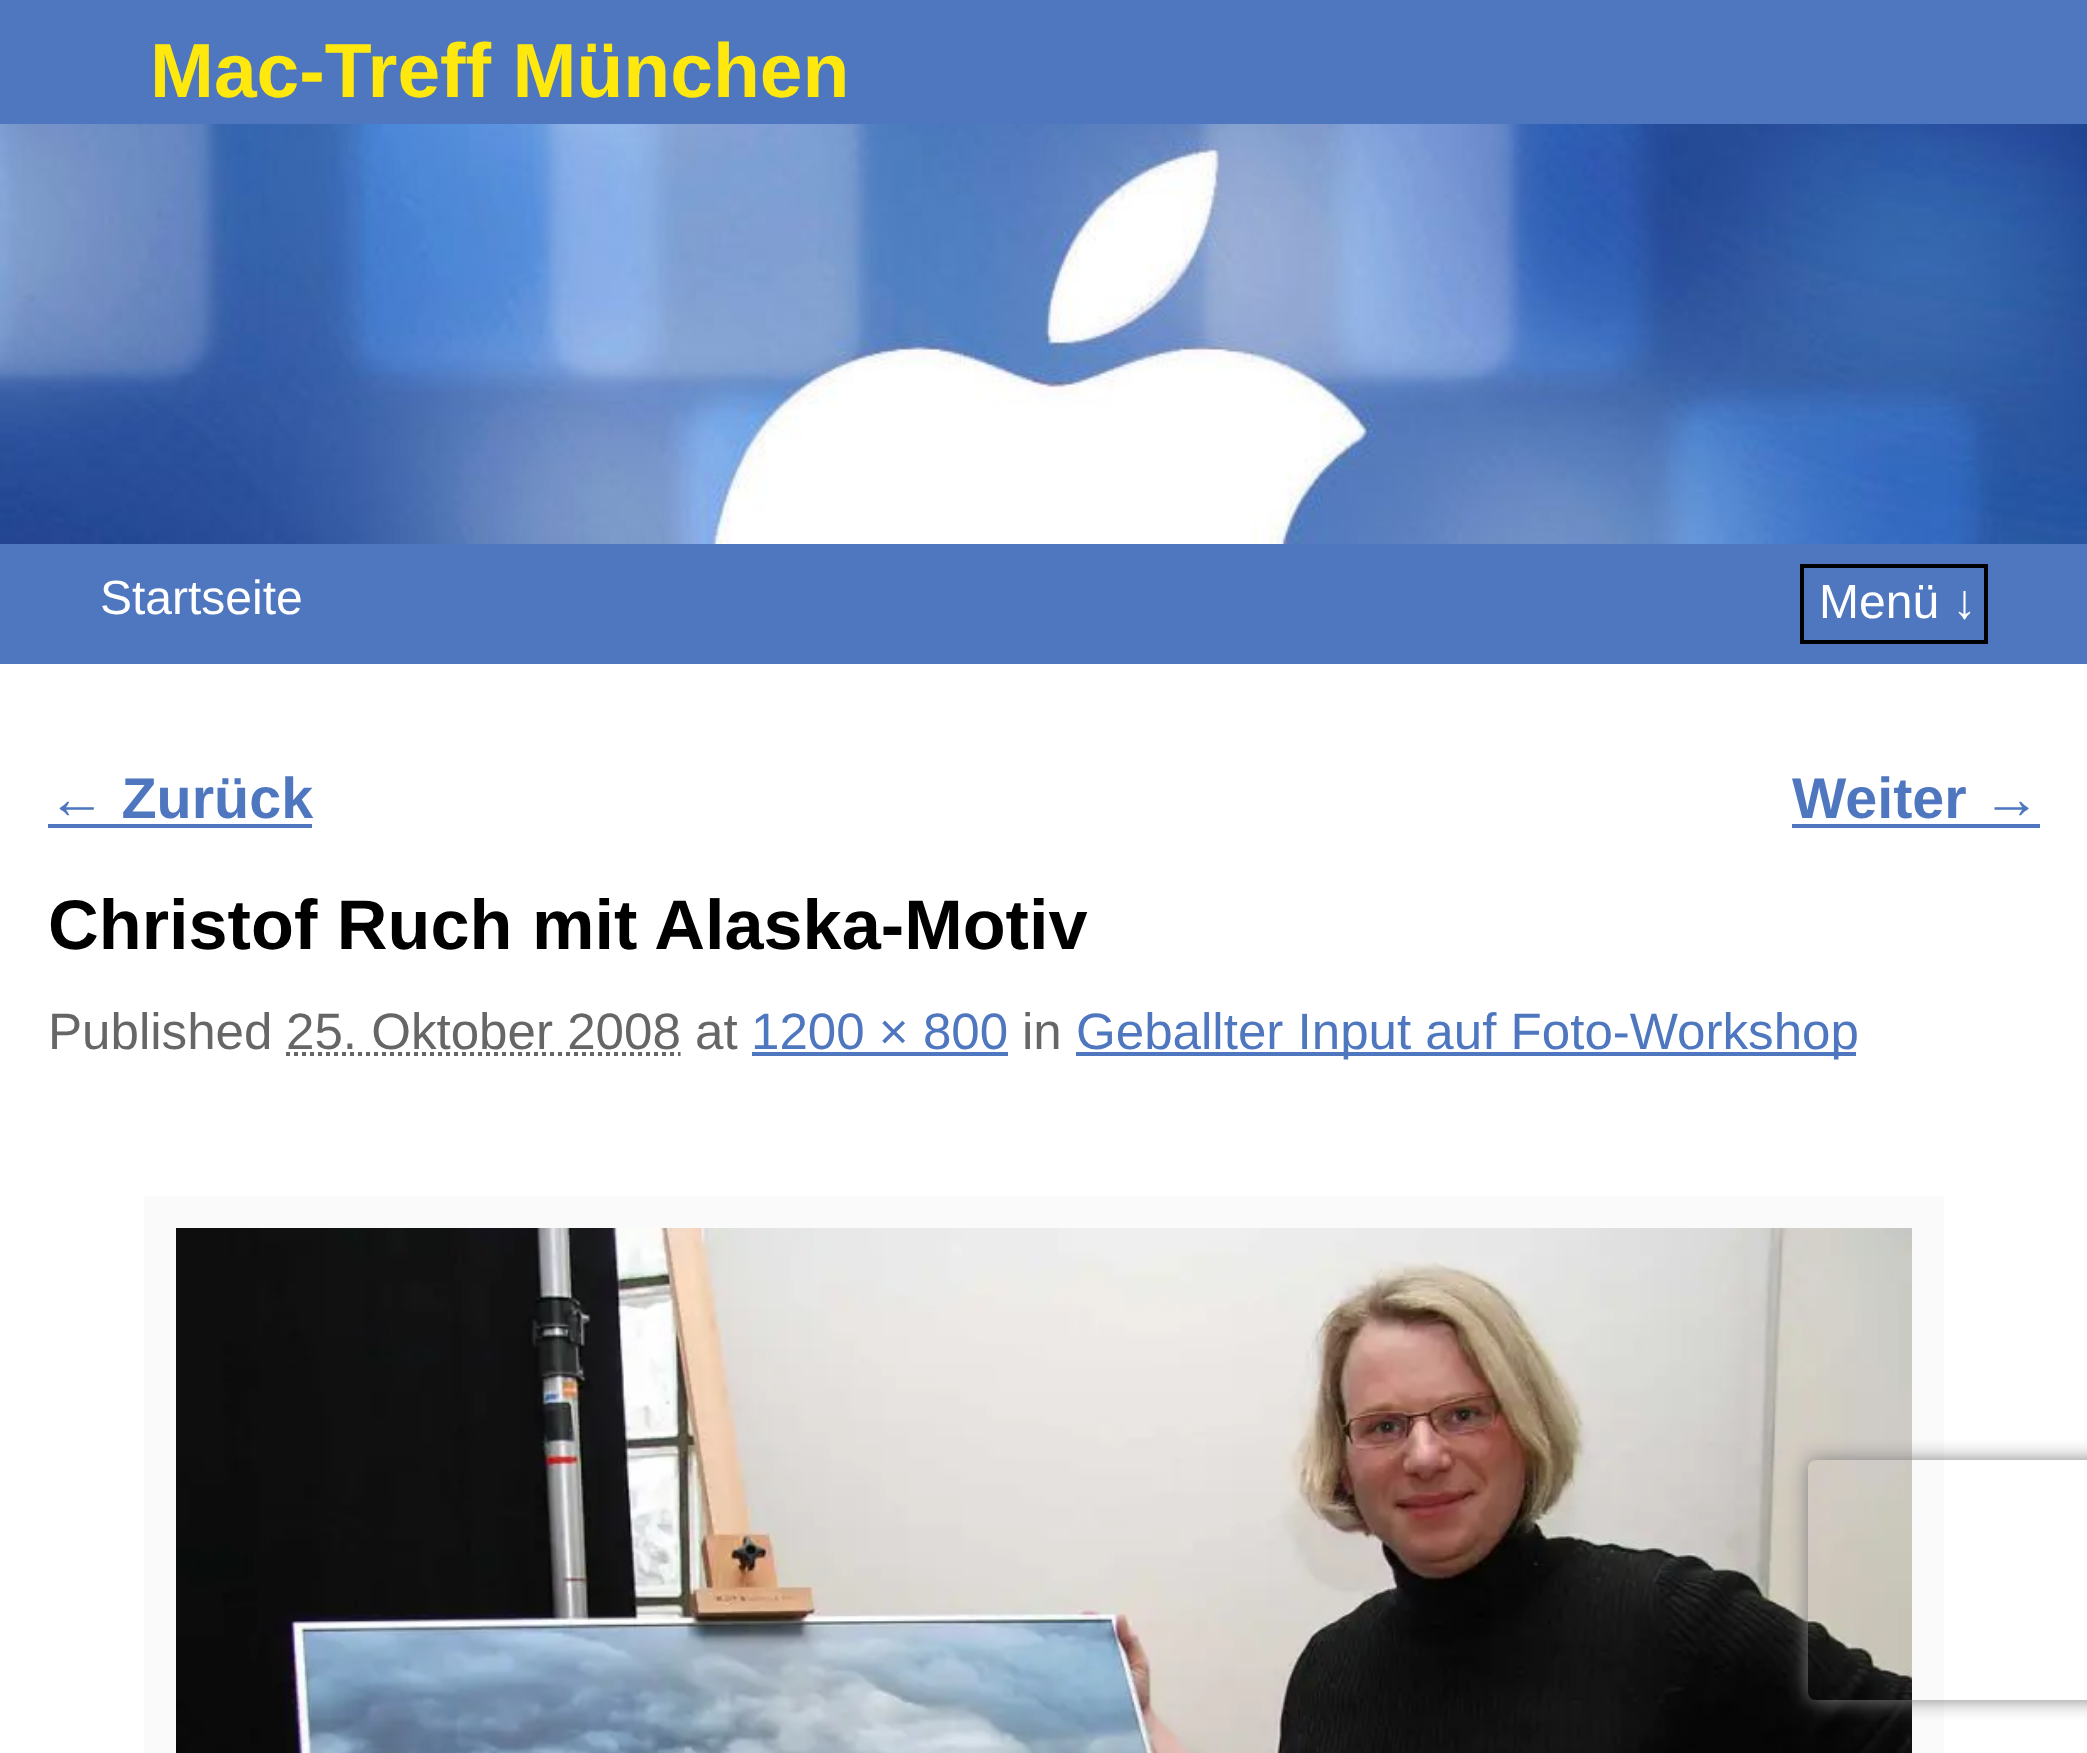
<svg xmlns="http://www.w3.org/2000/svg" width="2087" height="1753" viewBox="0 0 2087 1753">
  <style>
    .t1 { font: bold 76.75px Liberation Sans; fill: #ffe80d; }
    .t2 { font: 48px Liberation Sans; fill: #fff; }
    .t3 { font: bold 57.5px Liberation Sans; fill: #4f77bf; }
    .t4 { font: bold 70.25px Liberation Sans; fill: #000; }
    .t5 { font: 51.1px Liberation Sans; fill: #666; }
    .t6 { font: 51.1px Liberation Sans; fill: #4f77bf; }
  </style>
  <defs>
    <clipPath id="clip1"><path d="M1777 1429H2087V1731H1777ZM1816 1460H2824C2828.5 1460 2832 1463.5 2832 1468V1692C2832 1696.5 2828.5 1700 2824 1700H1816C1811.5 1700 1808 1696.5 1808 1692V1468C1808 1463.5 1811.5 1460 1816 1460Z" clip-rule="evenodd"/></clipPath>
  </defs>
  <rect width="100%" height="100%" fill="#fff"/>
  <rect x="0" y="0" width="2087" height="124" fill="#4f77bf"/>
  <text x="150" y="97" class="t1">Mac-Treff München</text>
  <image x="0" y="124" width="2087" height="420" href="images/1.png"/>
  <rect x="0" y="544" width="2087" height="120" fill="#4f77bf"/>
  <text x="100" y="614" class="t2">Startseite</text>
  <rect x="1802" y="566" width="184" height="76" fill="none" stroke="#000" stroke-width="4"/>
  <text x="1819" y="618" class="t2">Menü ↓</text>
  <text x="48" y="818" class="t3">← Zurück</text>
  <rect x="48" y="824" width="264" height="4" fill="#4f77bf"/>
  <text x="1792" y="818" class="t3">Weiter →</text>
  <rect x="1792" y="824" width="248" height="4" fill="#4f77bf"/>
  <text x="48" y="949" class="t4">Christof Ruch mit Alaska-Motiv</text>
  <text x="48" y="1049" class="t5">Published</text>
  <text x="286" y="1049" class="t5">25. Oktober 2008</text>
  <path d="M286 1054H680.5" fill="none" stroke="#666" stroke-width="4" stroke-dasharray="4 4"/>
  <text x="695" y="1049" class="t5">at</text>
  <text x="751" y="1049" class="t6">1200 × 800</text>
  <rect x="752" y="1052" width="256" height="4" fill="#4f77bf"/>
  <text x="1022" y="1049" class="t5">in</text>
  <rect x="1076" y="1052" width="780" height="4" fill="#4f77bf"/>
  <text x="1076" y="1049" class="t6">Geballter Input auf Foto-Workshop</text>
  <rect x="144" y="1196" width="1800" height="557" fill="#fafafa"/>
  <image x="176" y="1228" width="1736" height="525" href="images/2.png"/>
  <g clip-path="url(#clip1)">
    <rect x="1808" y="1460" width="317" height="240" rx="8" fill="#808080" filter="blur(10px)"/>
  </g>
</svg>
